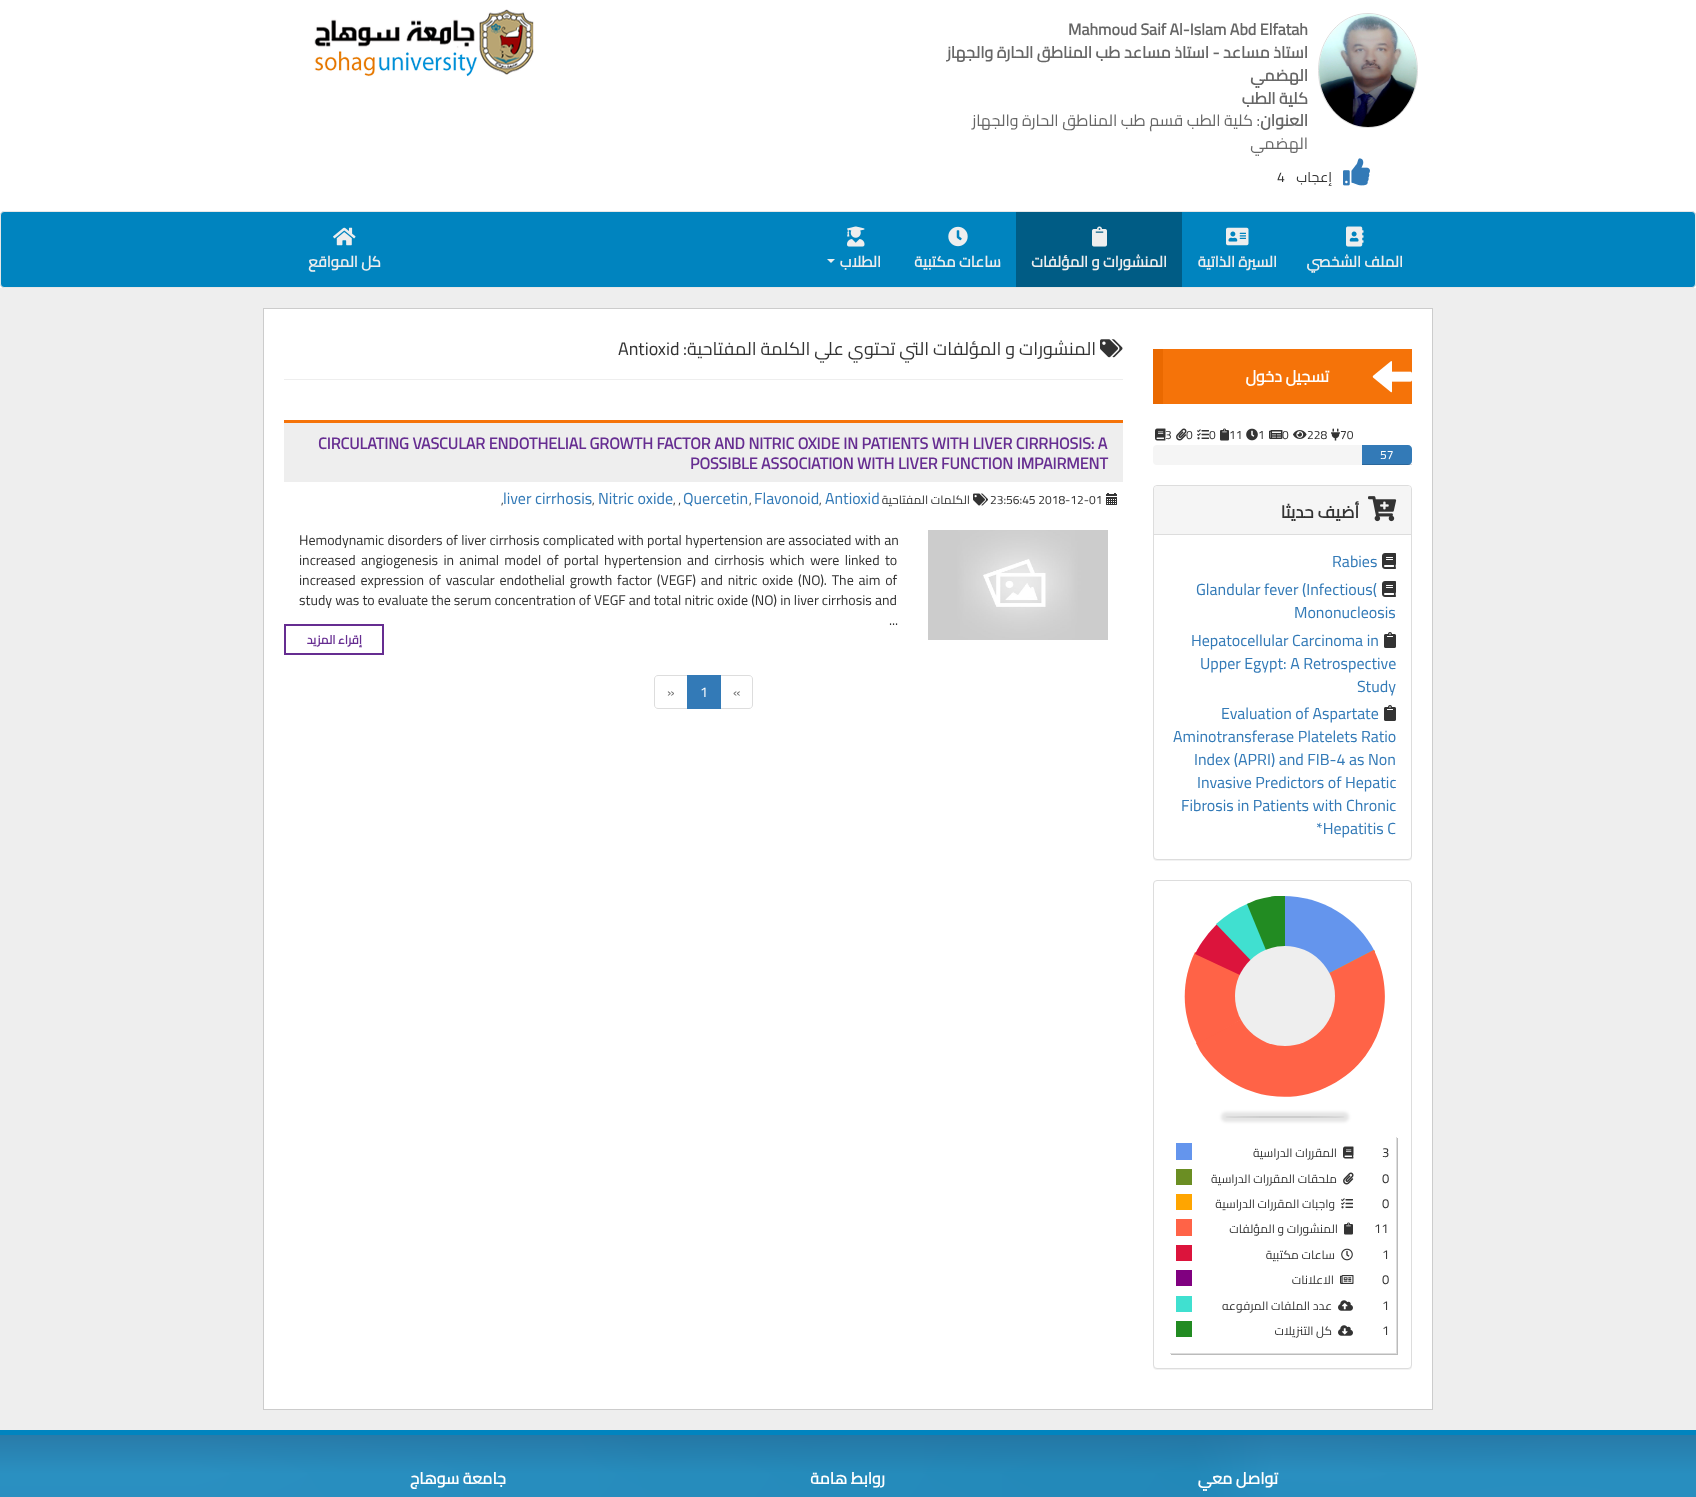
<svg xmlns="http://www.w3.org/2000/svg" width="1696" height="1497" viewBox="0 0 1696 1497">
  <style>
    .t1 { font: bold 16px Cairo; fill: #666; }
    .t2 { font: bold 16px Cairo; direction: rtl; fill: #666; }
    .t3 { font: 16px Cairo; direction: rtl; fill: #666; }
    .t4 { font: 14px Cairo; fill: #333; }
    .t5 { font: 14px Cairo; direction: rtl; fill: #333; }
    .t6 { font: bold 15px Cairo; direction: rtl; fill: #eee; }
    .t7 { font: 18px Cairo; fill: #333; }
    .t8 { font: 18px Cairo; direction: rtl; fill: #333; }
    .t9 { font: bold 16px Cairo; fill: #662d91; }
    .t10 { font: 12px Cairo; fill: #333; }
    .t11 { font: 16px Cairo; fill: #337ab7; }
    .t12 { font: 12px Cairo; direction: rtl; fill: #333; }
    .t13 { font: bold 12px Cairo; direction: rtl; fill: #662d91; }
    .t14 { font: 14px Cairo; fill: #777; }
    .t15 { font: 14px Cairo; fill: #fff; }
    .t16 { font: bold 16px Cairo; direction: rtl; fill: #fff; }
    .t17 { font: 12px Cairo; fill: #fff; }
    .t18 { font: bold 17px Cairo; direction: rtl; fill: #333; }
    .t19 { font: 13px Cairo; fill: #333; }
  </style>
  <defs>
    <clipPath id="clip1"><rect x="1185" y="896" width="100" height="200"/></clipPath>
  </defs>
  <rect width="100%" height="100%" fill="#fff"/>
  <image x="314" y="9" width="220" height="68" href="images/1.png"/>
  <text x="1068" y="35" class="t1">Mahmoud Saif Al-Islam Abd Elfatah</text>
  <text x="1308" y="58" class="t2">استاذ مساعد - استاذ مساعد طب المناطق الحارة والجهاز</text>
  <text x="1308" y="81" class="t2">الهضمي</text>
  <text x="1308" y="104" class="t2">كلية الطب</text>
  <text x="1260" y="126" class="t3">: كلية الطب قسم طب المناطق الحارة والجهاز</text>
  <text x="1308" y="126" class="t2">العنوان</text>
  <text x="1308" y="149" class="t3">الهضمي</text>
  <path d="M1368 13.5C1395.5 13.5 1417.5 39 1417.5 70.5C1417.5 102 1395.5 127.5 1368 127.5C1340.5 127.5 1318.5 102 1318.5 70.5C1318.5 39 1340.5 13.5 1368 13.5Z" fill="none" stroke="#ddd"/>
  <image x="1319" y="14" width="98" height="113" href="images/2.png"/>
  <text x="1277" y="182" class="t4">4</text>
  <text x="1332" y="182" class="t5">إعجاب</text>
  <image x="1343" y="158" width="27" height="28" href="images/3.png"/>
  <rect x="0.5" y="211.5" width="1695" height="76" rx="3.5" fill="#0084bf" stroke="#e7e7e7"/>
  <image x="333" y="227" width="23" height="19" href="images/4.png"/>
  <text x="381" y="267" class="t6">كل المواقع</text>
  <image x="847" y="226" width="18" height="21" href="images/5.png"/>
  <path d="M827 259H835L831 263Z" fill="#eee"/>
  <text x="881" y="267" class="t6">الطلاب</text>
  <image x="948" y="226" width="20" height="21" href="images/6.png"/>
  <text x="1001" y="267" class="t6">ساعات مكتبية</text>
  <rect x="1016" y="212" width="166" height="75" fill="#005c85"/>
  <image x="1092" y="226" width="15" height="21" href="images/7.png"/>
  <text x="1167" y="267" class="t6">المنشورات و المؤلفات</text>
  <image x="1226" y="227" width="23" height="19" href="images/8.png"/>
  <text x="1277" y="267" class="t6">السيرة الذاتية</text>
  <image x="1346" y="226" width="18" height="21" href="images/9.png"/>
  <text x="1403" y="267" class="t6">الملف الشخصي</text>
  <rect x="0" y="288" width="1696" height="1142" fill="#eee"/>
  <rect x="263.5" y="308.5" width="1169" height="1101" fill="#fff" stroke="#ccc"/>
  <text x="618" y="355" class="t7">Antioxid</text>
  <text x="1096" y="355" class="t8">المنشورات و المؤلفات التي تحتوي علي الكلمة المفتاحية:</text>
  <image x="1100" y="339" width="23" height="19" href="images/10.png"/>
  <rect x="284" y="379" width="839" height="1" fill="#eee"/>
  <rect x="284" y="423" width="839" height="59" fill="#eee"/>
  <rect x="284" y="420" width="839" height="3" fill="#f57309"/>
  <text x="318" y="449" class="t9">CIRCULATING VASCULAR ENDOTHELIAL GROWTH FACTOR AND NITRIC OXIDE IN PATIENTS WITH LIVER CIRRHOSIS: A</text>
  <text x="690" y="469" class="t9">POSSIBLE ASSOCIATION WITH LIVER FUNCTION IMPAIRMENT</text>
  <text x="501" y="504" class="t10">,</text>
  <text x="503" y="504" class="t11">liver cirrhosis</text>
  <text x="592" y="504" class="t10">,</text>
  <text x="598" y="504" class="t11">Nitric oxide</text>
  <text x="673" y="504" class="t10">, ,</text>
  <text x="683" y="504" class="t11">Quercetin</text>
  <text x="749" y="504" class="t10">,</text>
  <text x="754" y="504" class="t11">Flavonoid</text>
  <text x="819" y="504" class="t10">,</text>
  <text x="825" y="504" class="t11">Antioxid</text>
  <text x="970" y="504" class="t12">الكلمات المفتاحية</text>
  <image x="973" y="493" width="15" height="13" href="images/11.png"/>
  <text x="990" y="504" class="t10">23:56:45 2018-12-01</text>
  <image x="1106" y="493" width="11" height="12" href="images/12.png"/>
  <text x="299" y="545" word-spacing="0.25" class="t4">Hemodynamic disorders of liver cirrhosis complicated with portal hypertension are associated with an</text>
  <text x="299" y="565" word-spacing="2.25" class="t4">increased angiogenesis in animal model of portal hypertension and cirrhosis which were linked to</text>
  <text x="299" y="585" word-spacing="1.75" class="t4">increased expression of vascular endothelial growth factor (VEGF) and nitric oxide (NO). The aim of</text>
  <text x="299" y="605" class="t4">study was to evaluate the serum concentration of VEGF and total nitric oxide (NO) in liver cirrhosis and</text>
  <text x="889" y="625" class="t4">...</text>
  <rect x="285" y="625" width="98" height="29" fill="none" stroke="#662d91" stroke-width="2"/>
  <text x="362" y="644" class="t13">إقراء المزيد</text>
  <image x="928" y="530" width="180" height="110" href="images/13.png"/>
  <path d="M658 675.5H687.5V708.5H658C656 708.5 654.5 707 654.5 705V679C654.5 677 656 675.5 658 675.5Z" fill="none" stroke="#ddd"/>
  <text x="667" y="697" class="t14">»</text>
  <path d="M720.5 675.5H749C751 675.5 752.5 677 752.5 679V705C752.5 707 751 708.5 749 708.5H720.5Z" fill="none" stroke="#ddd"/>
  <rect x="687" y="675" width="34" height="34" fill="#337ab7"/>
  <text x="700" y="697" class="t15">1</text>
  <text x="733" y="697" class="t14">«</text>
  <rect x="1163" y="349" width="249" height="55" fill="#f57309"/>
  <rect x="1153" y="349" width="10" height="55" fill="#ea6900"/>
  <text x="1329" y="382" class="t16">تسجيل دخول</text>
  <image x="1372" y="361" width="40" height="32" href="images/14.png"/>
  <text x="1165" y="439" class="t10">3</text>
  <image x="1155" y="428" width="11" height="13" href="images/15.png"/>
  <text x="1186" y="439" class="t10">0</text>
  <image x="1176" y="428" width="11" height="13" href="images/16.png"/>
  <image x="1197" y="429" width="12" height="11" href="images/17.png"/>
  <text x="1209" y="439" class="t10">0</text>
  <image x="1220" y="428" width="9" height="13" href="images/18.png"/>
  <text x="1229" y="439" class="t10">11</text>
  <image x="1246" y="428" width="12" height="13" href="images/19.png"/>
  <text x="1258" y="439" class="t10">1</text>
  <text x="1282" y="439" class="t10">0</text>
  <image x="1269" y="430" width="14" height="9" href="images/20.png"/>
  <image x="1293" y="430" width="14" height="9" href="images/21.png"/>
  <text x="1307" y="439" class="t10">228</text>
  <image x="1331" y="428" width="9" height="13" href="images/22.png"/>
  <text x="1340" y="439" class="t10">70</text>
  <rect x="1153" y="445" width="259" height="20" rx="4" fill="#f5f5f5"/>
  <path d="M1362 445H1408C1410 445 1412 447 1412 449V461C1412 463 1410 465 1408 465H1362Z" fill="#337ab7"/>
  <rect x="1362" y="464" width="50" height="1" fill="#00000026"/>
  <text x="1380" y="459" class="t17">57</text>
  <rect x="1153" y="486" width="259" height="375" rx="4" fill="#0000000d" filter="blur(0.5px)"/>
  <rect x="1153.5" y="485.5" width="258" height="374" rx="3.5" fill="#fff" stroke="#ddd"/>
  <path d="M1157 486H1408C1409.5 486 1411 487.5 1411 489V535H1154V489C1154 487.5 1155.5 486 1157 486Z" fill="#f5f5f5"/>
  <rect x="1154" y="534" width="257" height="1" fill="#ddd"/>
  <text x="1359" y="518" class="t18">أضيف حديثا</text>
  <image x="1368" y="496" width="29" height="26" href="images/23.png"/>
  <text x="1332" y="567" class="t11">Rabies</text>
  <image x="1382" y="553" width="14" height="16" href="images/24.png"/>
  <text x="1196" y="595" class="t11">Glandular fever (Infectious(</text>
  <image x="1382" y="581" width="14" height="16" href="images/24.png"/>
  <text x="1294" y="618" class="t11">Mononucleosis</text>
  <text x="1191" y="646" class="t11">Hepatocellular Carcinoma in</text>
  <image x="1384" y="632" width="12" height="16" href="images/25.png"/>
  <text x="1200" y="669" class="t11">Upper Egypt: A Retrospective</text>
  <text x="1357" y="692" class="t11">Study</text>
  <text x="1221" y="719" class="t11">Evaluation of Aspartate</text>
  <image x="1384" y="705" width="12" height="16" href="images/25.png"/>
  <text x="1173" y="742" class="t11">Aminotransferase Platelets Ratio</text>
  <text x="1194" y="765" class="t11">Index (APRI) and FIB-4 as Non</text>
  <text x="1197" y="788" class="t11">Invasive Predictors of Hepatic</text>
  <text x="1181" y="811" class="t11">Fibrosis in Patients with Chronic</text>
  <text x="1316" y="834" class="t11">*Hepatitis C</text>
  <rect x="1153" y="881" width="259" height="489" rx="4" fill="#0000000d" filter="blur(0.5px)"/>
  <rect x="1153.5" y="880.5" width="258" height="488" rx="3.5" fill="#fff" stroke="#ddd"/>
  <path d="M1283 896C1322 896 1357 917 1375 952L1285 996Z" fill="#6495ed"/>
  <path d="M1374 950L1375 952L1285 996Z" fill="#ffa500"/>
  <path d="M1374 950L1196 1043L1200 1051C1228 1094 1285 1110 1331 1085C1378 1061 1397 1005 1377 957Z" fill="#ff6347"/>
  <path d="M1285 996L1197 1044C1181 1015 1181 981 1195 952Z" fill="#ff6347"/>
  <path d="M1285 996L1195 954C1201 942 1209 932 1218 923Z" fill="#dc143c"/>
  <path d="M1216 924C1226 915 1237 908 1249 903L1285 996Z" fill="#40e0d0"/>
  <g clip-path="url(#clip1)">
    <path d="M1247 904L1323 1089C1345 1080 1364 1062 1375 1040C1413 963 1340 874 1256 900Z" fill="#228b22"/>
  </g>
  <circle cx="1285" cy="996" r="50" fill="#eee"/>
  <rect x="1221" y="1112" width="128" height="10" rx="5" fill="#0000001a" filter="blur(1.5px)"/>
  <ellipse cx="1285" cy="1117" rx="60" ry="1" fill="#0000001a"/>
  <path d="M1171 1353V1355H1398V1138H1396V1353Z" fill="#bbb"/>
  <path d="M1170 1353V1354H1397V1137H1396V1353Z" fill="#ddd"/>
  <rect x="1176" y="1143" width="16" height="17" fill="#6495ed"/>
  <text x="1337" y="1157" class="t12">المقررات الدراسية</text>
  <image x="1343" y="1146" width="11" height="13" href="images/26.png"/>
  <text x="1382" y="1157" class="t19">3</text>
  <rect x="1176" y="1169" width="16" height="16" fill="#6b8e23"/>
  <text x="1337" y="1183" class="t12">ملحقات المقررات الدراسية</text>
  <image x="1343" y="1172" width="11" height="13" href="images/27.png"/>
  <text x="1382" y="1183" class="t19">0</text>
  <rect x="1176" y="1194" width="16" height="16" fill="#ffa500"/>
  <text x="1335" y="1208" class="t12">واجبات المقررات الدراسية</text>
  <image x="1341" y="1198" width="12" height="11" href="images/17.png"/>
  <text x="1382" y="1208" class="t19">0</text>
  <rect x="1176" y="1219" width="16" height="17" fill="#ff6347"/>
  <text x="1338" y="1233" class="t12">المنشورات و المؤلفات</text>
  <image x="1344" y="1222" width="9" height="13" href="images/18.png"/>
  <text x="1374" y="1233" class="t19">11</text>
  <rect x="1176" y="1245" width="16" height="16" fill="#dc143c"/>
  <text x="1335" y="1259" class="t12">ساعات مكتبية</text>
  <image x="1341" y="1248" width="12" height="13" href="images/28.png"/>
  <text x="1382" y="1259" class="t19">1</text>
  <rect x="1176" y="1270" width="16" height="16" fill="#800080"/>
  <text x="1334" y="1284" class="t12">الاعلانات</text>
  <image x="1340" y="1275" width="14" height="9" href="images/29.png"/>
  <text x="1382" y="1284" class="t19">0</text>
  <rect x="1176" y="1296" width="16" height="16" fill="#40e0d0"/>
  <text x="1332" y="1310" class="t12">عدد الملفات المرفوعه</text>
  <image x="1338" y="1300" width="15" height="11" href="images/30.png"/>
  <text x="1382" y="1310" class="t19">1</text>
  <rect x="1176" y="1321" width="16" height="16" fill="#228b22"/>
  <text x="1332" y="1335" class="t12">كل التنزيلات</text>
  <image x="1338" y="1325" width="15" height="11" href="images/31.png"/>
  <text x="1382" y="1335" class="t19">1</text>
  <image x="0" y="1435" width="1696" height="62" href="images/32.png"/>
  <rect x="0" y="1430" width="1696" height="5" fill="#0084bf"/>
  <text x="506" y="1484" class="t16">جامعة سوهاج</text>
  <text x="885" y="1484" class="t16">روابط هامة</text>
  <text x="1278" y="1484" class="t16">تواصل معي</text>
</svg>
